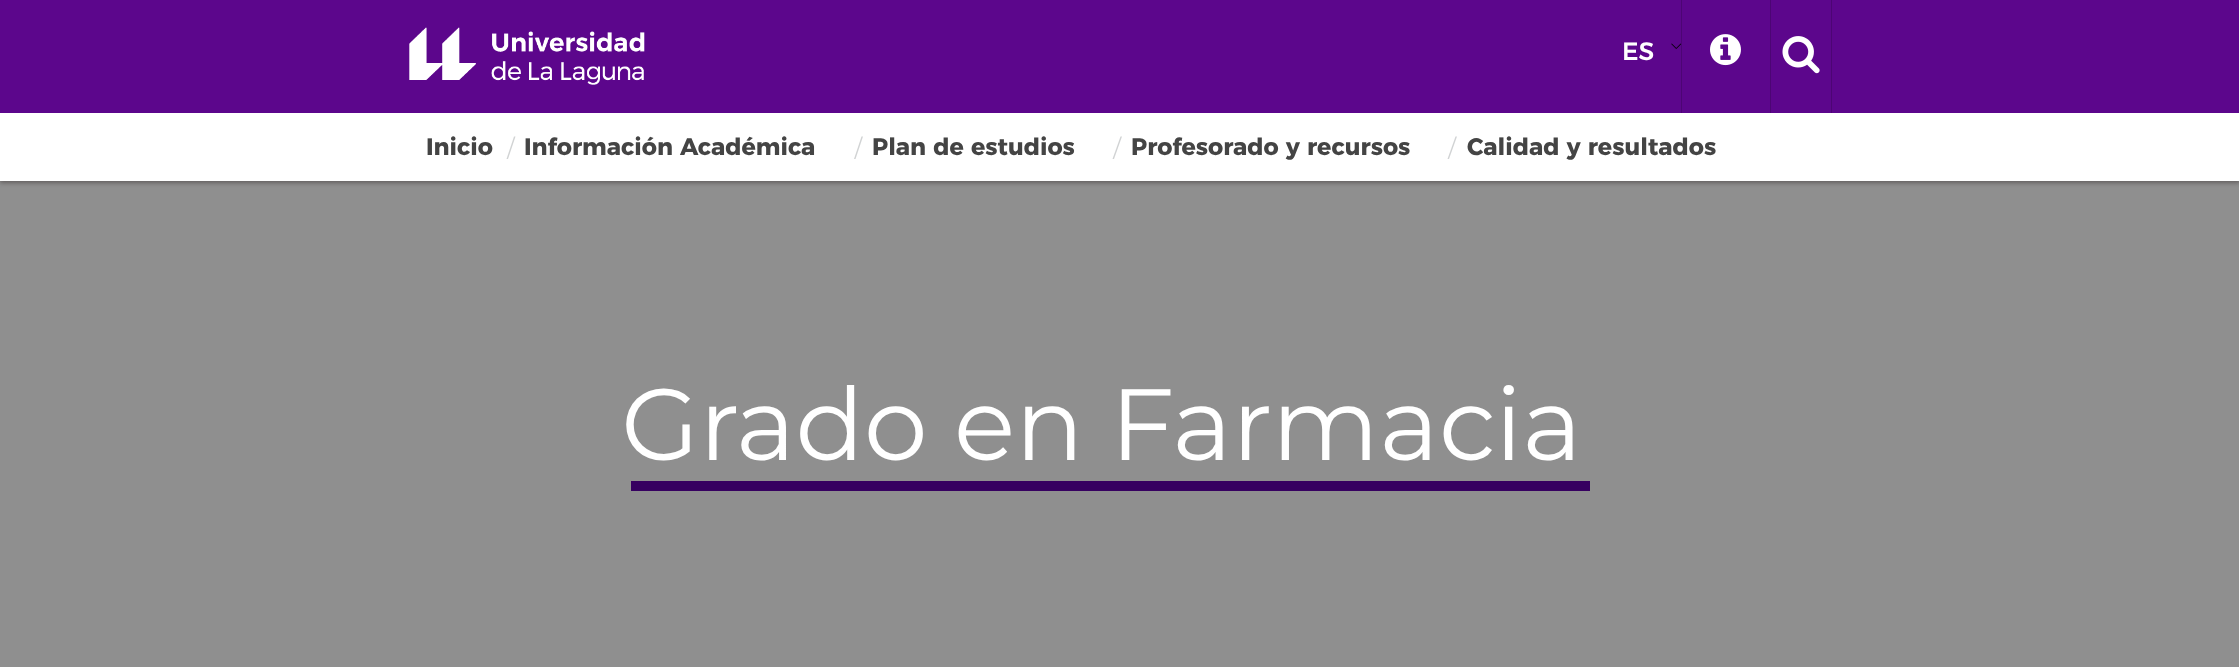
<svg xmlns="http://www.w3.org/2000/svg" width="2239" height="667" viewBox="0 0 2239 667">
  <style>
    .t1 { font: 500 25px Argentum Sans; fill: #fff; }
    .t2 { font: bold 23.75px Argentum Sans; fill: #444; }
    .t3 { font: 101.25px Montserrat; fill: #fff; }
  </style>
  <rect width="100%" height="100%" fill="#8f8f8f"/>
  <rect x="0" y="114" width="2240" height="69" fill="#22191966" filter="blur(2px)"/>
  <rect x="0" y="0" width="2239" height="113" fill="#5c068c"/>
  <image x="409" y="27" width="236" height="58" href="images/1.png"/>
  <image x="1671" y="43" width="10" height="6" href="images/2.png"/>
  <text x="1622" y="60" class="t1">ES</text>
  <rect x="1681" y="0" width="1" height="113" fill="#4c0574"/>
  <image x="1710" y="34" width="31" height="32" href="images/3.png"/>
  <rect x="1831" y="0" width="1" height="113" fill="#4c0574"/>
  <rect x="1770" y="0" width="1" height="113" fill="#4c0574"/>
  <image x="1782" y="36" width="38" height="38" href="images/4.png"/>
  <rect x="0" y="113" width="2239" height="68" fill="#fff"/>
  <text x="426" y="155" class="t2">Inicio</text>
  <path d="M514 136.5L506.5 159H508L515.5 136.5Z" fill="#d1d3d4"/>
  <text x="524" y="155" class="t2">Información Académica</text>
  <path d="M861.5 136.5L854 159H855.5L863 136.5Z" fill="#d1d3d4"/>
  <text x="872" y="155" class="t2">Plan de estudios</text>
  <path d="M1120.5 136.5L1112.5 159H1114L1122 136.5Z" fill="#d1d3d4"/>
  <text x="1131" y="155" class="t2">Profesorado y recursos</text>
  <path d="M1455.5 136.5L1447.5 159H1449L1457 136.5Z" fill="#d1d3d4"/>
  <text x="1467" y="155" class="t2">Calidad y resultados</text>
  <text x="621" y="460" class="t3">Grado en Farmacia</text>
  <rect x="631" y="481" width="959" height="10" fill="#360060"/>
</svg>
